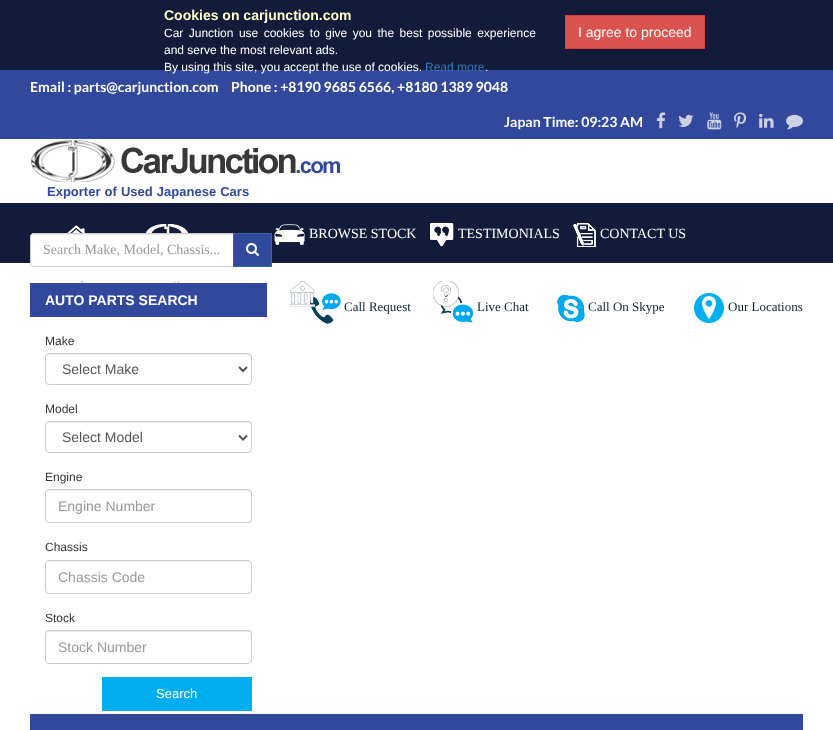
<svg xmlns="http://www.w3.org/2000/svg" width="833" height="730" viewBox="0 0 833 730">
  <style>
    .t1 { font: bold 14px Liberation Sans; fill: #ffc; }
    .t2 { font: 12px Liberation Sans; fill: #fff; }
    .t3 { font: 12px Liberation Sans; fill: #337ab7; }
    .t4 { font: 14px Liberation Sans; fill: #fff; }
    .t5 { font: bold 14px Lato; fill: #fff; }
    .t6 { font: bold 13px Liberation Sans; fill: #32489d; }
    .t7 { font: 14px Liberation Serif; fill: #999; }
    .t8 { font: 13px Liberation Serif; fill: #0b232e; }
    .t9 { font: 14px Liberation Serif; fill: #fff; }
    .t10 { font: bold 14px Liberation Sans; fill: #fff; }
    .t11 { font: 12px Liberation Sans; fill: #333; }
    .t12 { font: 14px Liberation Sans; fill: #555; }
    .t13 { font: 14px Liberation Sans; fill: #999; }
    .t14 { font: 13px Liberation Sans; fill: #fff; }
  </style>
  <rect width="100%" height="100%" fill="#fff"/>
  <rect x="0" y="0" width="833" height="70" fill="#121b39"/>
  <text x="164" y="20" class="t1">Cookies on carjunction.com</text>
  <text x="164" y="37" word-spacing="2.1" class="t2">Car Junction use cookies to give you the best possible experience</text>
  <text x="164" y="54" class="t2">and serve the most relevant ads.</text>
  <rect x="0" y="70" width="833" height="69" fill="#32489d"/>
  <text x="164" y="71" class="t2">By using this site, you accept the use of cookies.</text>
  <text x="425" y="71" class="t3">Read more</text>
  <text x="485" y="71" class="t2">.</text>
  <rect x="565.5" y="15.5" width="139" height="33" fill="#d9534f" stroke="#d43f3a"/>
  <text x="578" y="37" class="t4">I agree to proceed</text>
  <text x="30" y="92" class="t5">Email : parts@carjunction.com</text>
  <text x="231" y="92" class="t5">Phone : +8190 9685 6566, +8180 1389 9048</text>
  <text x="504" y="127" class="t5">Japan Time: 09:23 AM</text>
  <image x="656" y="112" width="10" height="17" href="images/1.png"/>
  <image x="678" y="114" width="16" height="13" href="images/2.png"/>
  <image x="707" y="112" width="15" height="18" href="images/3.png"/>
  <image x="734" y="112" width="13" height="17" href="images/4.png"/>
  <image x="759" y="113" width="15" height="15" href="images/5.png"/>
  <image x="786" y="114" width="17" height="16" href="images/6.png"/>
  <image x="31" y="140" width="309" height="42" href="images/7.png"/>
  <text x="47" y="196" word-spacing="0.5" class="t6">Exporter of Used Japanese Cars</text>
  <rect x="0" y="203" width="833" height="60" fill="#121b39"/>
  <path d="M34 233H234V267H34C32 267 30 265 30 263V237C30 235 32 233 34 233Z" fill="#fff"/>
  <path d="M34 235H233V234H34C32 234 31 236 31 238C31 236 32 235 34 235Z" fill="#ececec"/>
  <path d="M34 233.5H233.5V266.5H34C32 266.5 30.5 265 30.5 263V237C30.5 235 32 233.5 34 233.5Z" fill="none" stroke="#ccc"/>
  <text x="43" y="254" class="t7">Search Make, Model, Chassis...</text>
  <rect x="233.5" y="233.5" width="38" height="33" fill="#32489d" stroke="#2e6da4"/>
  <image x="246" y="243" width="13" height="13" href="images/8.png"/>
  <image x="310" y="293" width="31" height="31" href="images/9.png"/>
  <text x="344" y="311" class="t8">Call Request</text>
  <image x="440" y="294" width="34" height="29" href="images/10.png"/>
  <text x="477" y="311" class="t8">Live Chat</text>
  <image x="557" y="294" width="28" height="29" href="images/11.png"/>
  <text x="588" y="311" class="t8">Call On Skype</text>
  <image x="694" y="293" width="30" height="30" href="images/12.png"/>
  <text x="728" y="311" class="t8">Our Locations</text>
  <image x="67" y="225" width="19" height="8" href="images/13.png"/>
  <image x="146" y="224" width="42" height="9" href="images/14.png"/>
  <image x="274" y="224" width="31" height="21" href="images/15.png"/>
  <text x="309" y="238" class="t9">BROWSE STOCK</text>
  <image x="430" y="223" width="24" height="24" href="images/16.png"/>
  <text x="458" y="238" class="t9">TESTIMONIALS</text>
  <image x="573" y="223" width="23" height="24" href="images/17.png"/>
  <text x="600" y="238" class="t9">CONTACT US</text>
  <image x="81" y="281" width="3" height="2" href="images/18.png"/>
  <image x="173" y="281" width="6" height="2" href="images/19.png"/>
  <image x="290" y="281" width="25" height="26" href="images/20.png"/>
  <image x="433" y="281" width="26" height="26" href="images/21.png"/>
  <rect x="30" y="283" width="237" height="34" fill="#32489d"/>
  <text x="45" y="305" class="t10">AUTO PARTS SEARCH</text>
  <text x="45" y="345" class="t11">Make</text>
  <path d="M49 355H248C250 355 251 356 251 358C251 356 250 354 248 354H49C47 354 46 356 46 358C46 356 47 355 49 355Z" fill="#ececec"/>
  <rect x="45.5" y="353.5" width="206" height="31" rx="3.5" fill="none" stroke="#ccc"/>
  <path d="M239 367L243 371L247 367" fill="none" stroke="#555" stroke-width="2"/>
  <text x="62" y="374" class="t12">Select Make</text>
  <text x="45" y="413" class="t11">Model</text>
  <path d="M49 423H248C250 423 251 424 251 426C251 424 250 422 248 422H49C47 422 46 424 46 426C46 424 47 423 49 423Z" fill="#ececec"/>
  <rect x="45.5" y="421.5" width="206" height="31" rx="3.5" fill="none" stroke="#ccc"/>
  <path d="M239 435.5L243 439.5L247 435.5" fill="none" stroke="#555" stroke-width="2"/>
  <text x="62" y="442" class="t12">Select Model</text>
  <text x="45" y="481" class="t11">Engine</text>
  <path d="M49 491H248C250 491 251 492 251 494C251 492 250 490 248 490H49C47 490 46 492 46 494C46 492 47 491 49 491Z" fill="#ececec"/>
  <rect x="45.5" y="489.5" width="206" height="33" rx="3.5" fill="none" stroke="#ccc"/>
  <text x="58" y="511" class="t13">Engine Number</text>
  <text x="45" y="551" class="t11">Chassis</text>
  <path d="M49 562H248C250 562 251 563 251 565C251 563 250 561 248 561H49C47 561 46 563 46 565C46 563 47 562 49 562Z" fill="#ececec"/>
  <rect x="45.5" y="560.5" width="206" height="33" rx="3.5" fill="none" stroke="#ccc"/>
  <text x="58" y="582" class="t13">Chassis Code</text>
  <text x="45" y="622" class="t11">Stock</text>
  <path d="M49 632H248C250 632 251 633 251 635C251 633 250 631 248 631H49C47 631 46 633 46 635C46 633 47 632 49 632Z" fill="#ececec"/>
  <rect x="45.5" y="630.5" width="206" height="33" rx="3.5" fill="none" stroke="#ccc"/>
  <text x="58" y="652" class="t13">Stock Number</text>
  <rect x="102" y="677" width="150" height="34" fill="#00aeef"/>
  <text x="156" y="698" class="t14">Search</text>
  <rect x="30" y="714" width="773" height="16" fill="#32489d"/>
</svg>
